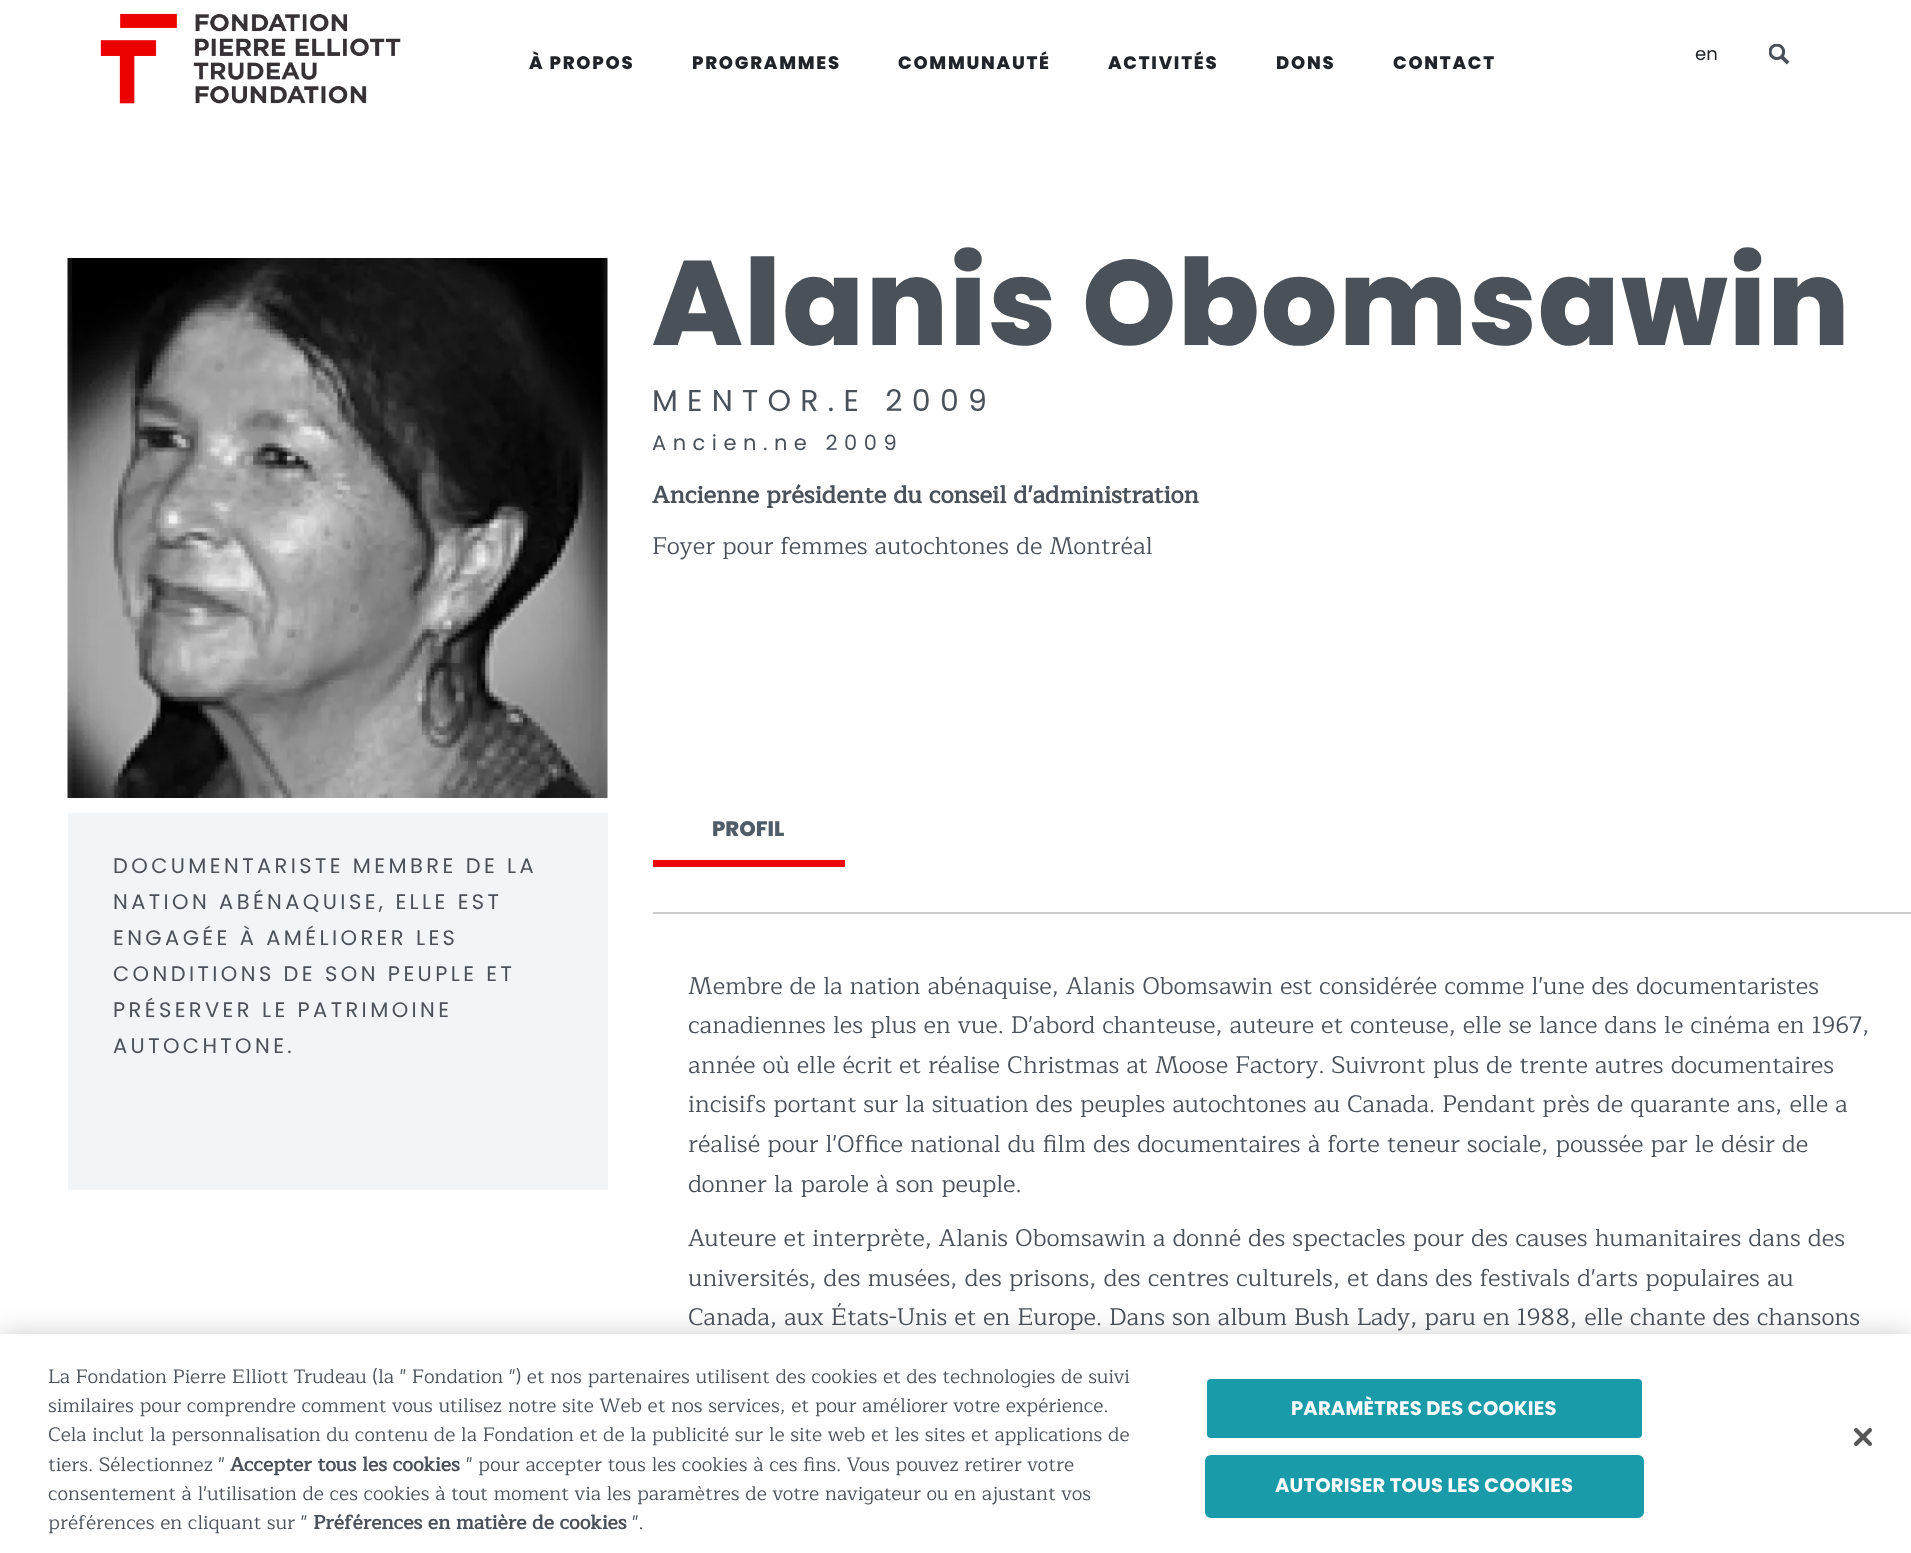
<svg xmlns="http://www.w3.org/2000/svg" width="1911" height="1553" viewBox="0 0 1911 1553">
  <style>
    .t1 { font: 800 18px Poppins; letter-spacing: 1.75px; fill: #212529; }
    .t2 { font: 18px Poppins; fill: #212529; }
    .t3 { font: 800 120px Poppins; letter-spacing: 1.5px; fill: #4a5159; }
    .t4 { font: 30px Poppins; letter-spacing: 9.25px; fill: #4a5159; }
    .t5 { font: 21px Poppins; letter-spacing: 6.5px; fill: #4a5159; }
    .t6 { font: bold 24px Maitree; fill: #4a5159; }
    .t7 { font: 24px Maitree; fill: #4a5159; }
    .t8 { font: 21px Poppins; letter-spacing: 3.4px; fill: #4a5159; }
    .t9 { font: 800 21px Poppins; fill: #505d68; }
    .t10 { font: 19.5px Maitree; fill: #4a5159; }
    .t11 { font: bold 19.5px Maitree; fill: #4a5159; }
    .t12 { font: bold 19.5px Poppins; letter-spacing: 0.2px; fill: #fff; }
  </style>
  <rect width="100%" height="100%" fill="#fff"/>
  <image x="100" y="13" width="301" height="91" href="images/1.png"/>
  <text x="529" y="69" class="t1">À PROPOS</text>
  <text x="692" y="69" class="t1">PROGRAMMES</text>
  <text x="898" y="69" class="t1">COMMUNAUTÉ</text>
  <text x="1108" y="69" class="t1">ACTIVITÉS</text>
  <text x="1276" y="69" class="t1">DONS</text>
  <text x="1393" y="69" class="t1">CONTACT</text>
  <text x="1695" y="60" class="t2">en</text>
  <image x="1769" y="44" width="21" height="21" href="images/2.png"/>
  <image x="67" y="258" width="541" height="540" href="images/3.png"/>
  <text x="652" y="345" class="t3">Alanis Obomsawin</text>
  <text x="652" y="411" class="t4">MENTOR.E 2009</text>
  <text x="652" y="450" class="t5">Ancien.ne 2009</text>
  <text x="652" y="503" class="t6">Ancienne présidente du conseil d'administration</text>
  <text x="652" y="554" class="t7">Foyer pour femmes autochtones de Montréal</text>
  <rect x="68" y="813" width="540" height="377" fill="#f2f5f7"/>
  <text x="113" y="873" class="t8">DOCUMENTARISTE MEMBRE DE LA</text>
  <text x="113" y="909" class="t8">NATION ABÉNAQUISE, ELLE EST</text>
  <text x="113" y="945" class="t8">ENGAGÉE À AMÉLIORER LES</text>
  <text x="113" y="981" class="t8">CONDITIONS DE SON PEUPLE ET</text>
  <text x="113" y="1017" class="t8">PRÉSERVER LE PATRIMOINE</text>
  <text x="113" y="1053" class="t8">AUTOCHTONE.</text>
  <rect x="653" y="912" width="1258" height="2" fill="#ccc"/>
  <rect x="653" y="860" width="192" height="7" fill="#ec0808"/>
  <text x="712" y="836" class="t9">PROFIL</text>
  <text x="688" y="994" class="t7">Membre de la nation abénaquise, Alanis Obomsawin est considérée comme l'une des documentaristes</text>
  <text x="688" y="1033" class="t7">canadiennes les plus en vue. D'abord chanteuse, auteure et conteuse, elle se lance dans le cinéma en 1967,</text>
  <text x="688" y="1073" class="t7">année où elle écrit et réalise Christmas at Moose Factory. Suivront plus de trente autres documentaires</text>
  <text x="688" y="1112" class="t7">incisifs portant sur la situation des peuples autochtones au Canada. Pendant près de quarante ans, elle a</text>
  <text x="688" y="1152" class="t7">réalisé pour l'Office national du film des documentaires à forte teneur sociale, poussée par le désir de</text>
  <text x="688" y="1192" class="t7">donner la parole à son peuple.</text>
  <text x="688" y="1246" class="t7">Auteure et interprète, Alanis Obomsawin a donné des spectacles pour des causes humanitaires dans des</text>
  <text x="688" y="1286" class="t7">universités, des musées, des prisons, des centres culturels, et dans des festivals d'arts populaires au</text>
  <text x="688" y="1325" class="t7">Canada, aux États-Unis et en Europe. Dans son album Bush Lady, paru en 1988, elle chante des chansons</text>
  <rect x="0" y="1334" width="1911" height="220" fill="#00000033" filter="blur(13.5px)"/>
  <rect x="0" y="1334" width="1911" height="219" fill="#fff"/>
  <text x="48" y="1383" class="t10">La Fondation Pierre Elliott Trudeau (la " Fondation ") et nos partenaires utilisent des cookies et des technologies de suivi</text>
  <text x="48" y="1412" class="t10">similaires pour comprendre comment vous utilisez notre site Web et nos services, et pour améliorer votre expérience.</text>
  <text x="48" y="1441" class="t10">Cela inclut la personnalisation du contenu de la Fondation et de la publicité sur le site web et les sites et applications de</text>
  <text x="48" y="1471" class="t10">tiers. Sélectionnez "</text>
  <text x="230" y="1471" class="t11">Accepter tous les cookies</text>
  <text x="466" y="1471" class="t10">" pour accepter tous les cookies à ces fins. Vous pouvez retirer votre</text>
  <text x="48" y="1500" class="t10">consentement à l'utilisation de ces cookies à tout moment via les paramètres de votre navigateur ou en ajustant vos</text>
  <text x="48" y="1529" class="t10">préférences en cliquant sur "</text>
  <text x="313" y="1529" class="t11">Préférences en matière de cookies</text>
  <text x="632" y="1529" class="t10">".</text>
  <rect x="1206" y="1378" width="437" height="61" rx="5" fill="#1a9ba9" stroke="#fff" stroke-width="2"/>
  <text x="1291" y="1415" class="t12">PARAMÈTRES DES COOKIES</text>
  <rect x="1206" y="1456" width="437" height="61" rx="5" fill="#1a9ba9" stroke="#1a9ba9" stroke-width="2"/>
  <text x="1275" y="1492" class="t12">AUTORISER TOUS LES COOKIES</text>
  <image x="1854" y="1428" width="18" height="18" href="images/4.png"/>
</svg>
